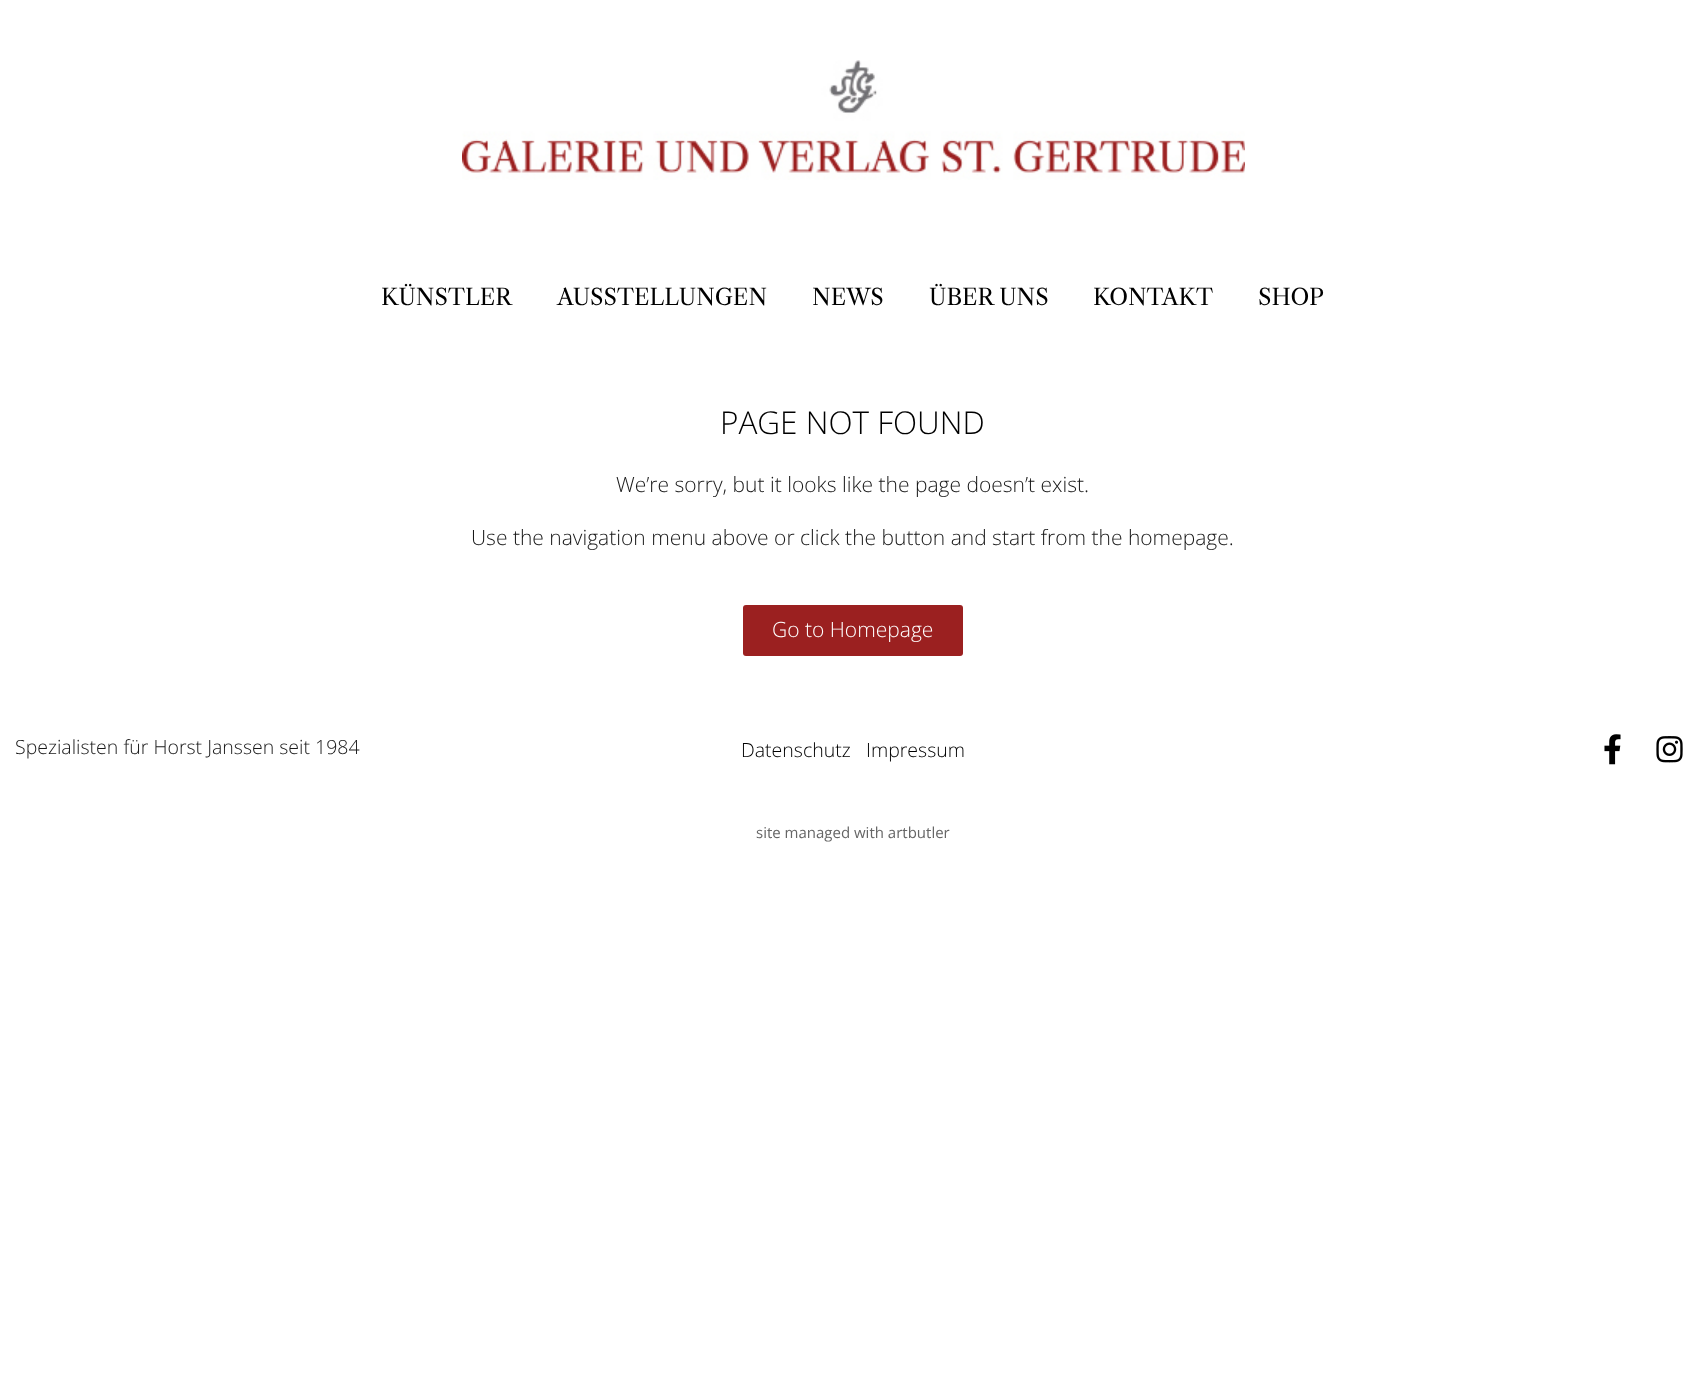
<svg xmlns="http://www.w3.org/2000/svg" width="1705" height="1374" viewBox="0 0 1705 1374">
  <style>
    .t1 { font: 22.5px Libre Caslon Text; fill: #000; }
    .t2 { font: 300 31.5px Open Sans; fill: #000; }
    .t3 { font: 300 21px Open Sans; fill: #181818; }
    .t4 { font: 300 21px Open Sans; fill: #fff; }
    .t5 { font: 300 19.5px Open Sans; fill: #181818; }
    .t6 { font: 300 19.5px Open Sans; fill: #000; }
    .t7 { font: 15px Open Sans; fill: #666; }
  </style>
  <rect width="100%" height="100%" fill="#fff"/>
  <image x="462" y="60" width="783" height="120" href="images/1.png"/>
  <text x="381" y="305" class="t1">KÜNSTLER</text>
  <text x="557" y="305" class="t1">AUSSTELLUNGEN</text>
  <text x="812" y="305" class="t1">NEWS</text>
  <text x="929" y="305" class="t1">ÜBER UNS</text>
  <text x="1093" y="305" class="t1">KONTAKT</text>
  <text x="1258" y="305" class="t1">SHOP</text>
  <text x="720" y="434" class="t2">PAGE NOT FOUND</text>
  <text x="616" y="492" class="t3">We’re sorry, but it looks like the page doesn’t exist.</text>
  <text x="471" y="545" class="t3">Use the navigation menu above or click the button and start from the homepage.</text>
  <rect x="743" y="605" width="220" height="51" rx="3" fill="#9b2020"/>
  <text x="772" y="637" class="t4">Go to Homepage</text>
  <text x="15" y="754" class="t5">Spezialisten für Horst Janssen seit 1984</text>
  <text x="741" y="757" class="t6">Datenschutz</text>
  <text x="866" y="757" class="t6">Impressum</text>
  <image x="1604" y="734" width="17" height="31" href="images/2.png"/>
  <image x="1656" y="736" width="27" height="27" href="images/3.png"/>
  <text x="756" y="838" class="t7">site managed with artbutler</text>
</svg>
